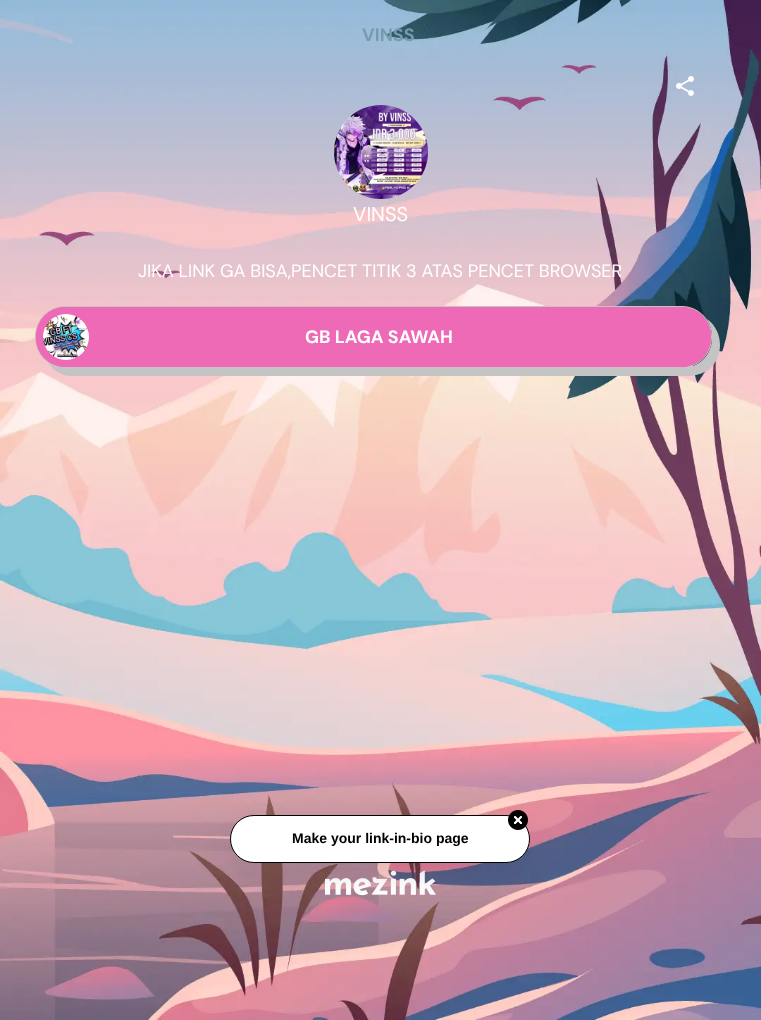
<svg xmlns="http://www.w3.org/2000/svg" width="761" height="1020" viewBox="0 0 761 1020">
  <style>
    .t1 { font: bold 18px DM Sans; fill: #789ab1; }
    .t2 { font: 20px DM Sans; fill: #fff; }
    .t3 { font: 18px DM Sans; fill: #fff; }
    .t4 { font: bold 18px DM Sans; fill: #fff; }
    .t5 { font: bold 14px Arimo; fill: #000; }
  </style>
  <rect width="100%" height="100%" fill="#fff"/>
  <image x="0" y="0" width="761" height="1020" href="images/1.png"/>
  <text x="362" y="41" class="t1">VINSS</text>
  <image x="676" y="76" width="18" height="20" href="images/2.png"/>
  <image x="334" y="105" width="94" height="94" href="images/3.png"/>
  <text x="353" y="221" class="t2">VINSS</text>
  <text x="138" y="277" class="t3">JIKA LINK GA BISA,PENCET TITIK 3 ATAS PENCET BROWSER</text>
  <path d="M48 363C53 370 61 375 69 376H690L696 375C723 370 728 334 707 319C710 324 712 330 712 336V338C712 355 699 368 682 368H65C59 368 53 366 48 363Z" fill="#c4c4c4"/>
  <rect x="35.5" y="306.5" width="676" height="61" rx="29.5" fill="#ee69b6" stroke="#c4c4c4"/>
  <rect x="36" y="307" width="675" height="60" rx="30" fill="#ee69b6"/>
  <image x="43" y="314" width="46" height="46" href="images/4.png"/>
  <text x="305" y="343" class="t4">GB LAGA SAWAH</text>
  <image x="325" y="870" width="111" height="26" href="images/6.png"/>
  <rect x="230" y="829" width="300" height="48" rx="24" fill="#191f3d1a" filter="blur(14px)"/>
  <rect x="230.5" y="815.5" width="299" height="47" rx="23.5" fill="#fff" stroke="#000"/>
  <image x="508" y="810" width="20" height="20" href="images/5.png"/>
  <text x="292" y="843" class="t5">Make your link-in-bio page</text>
</svg>
